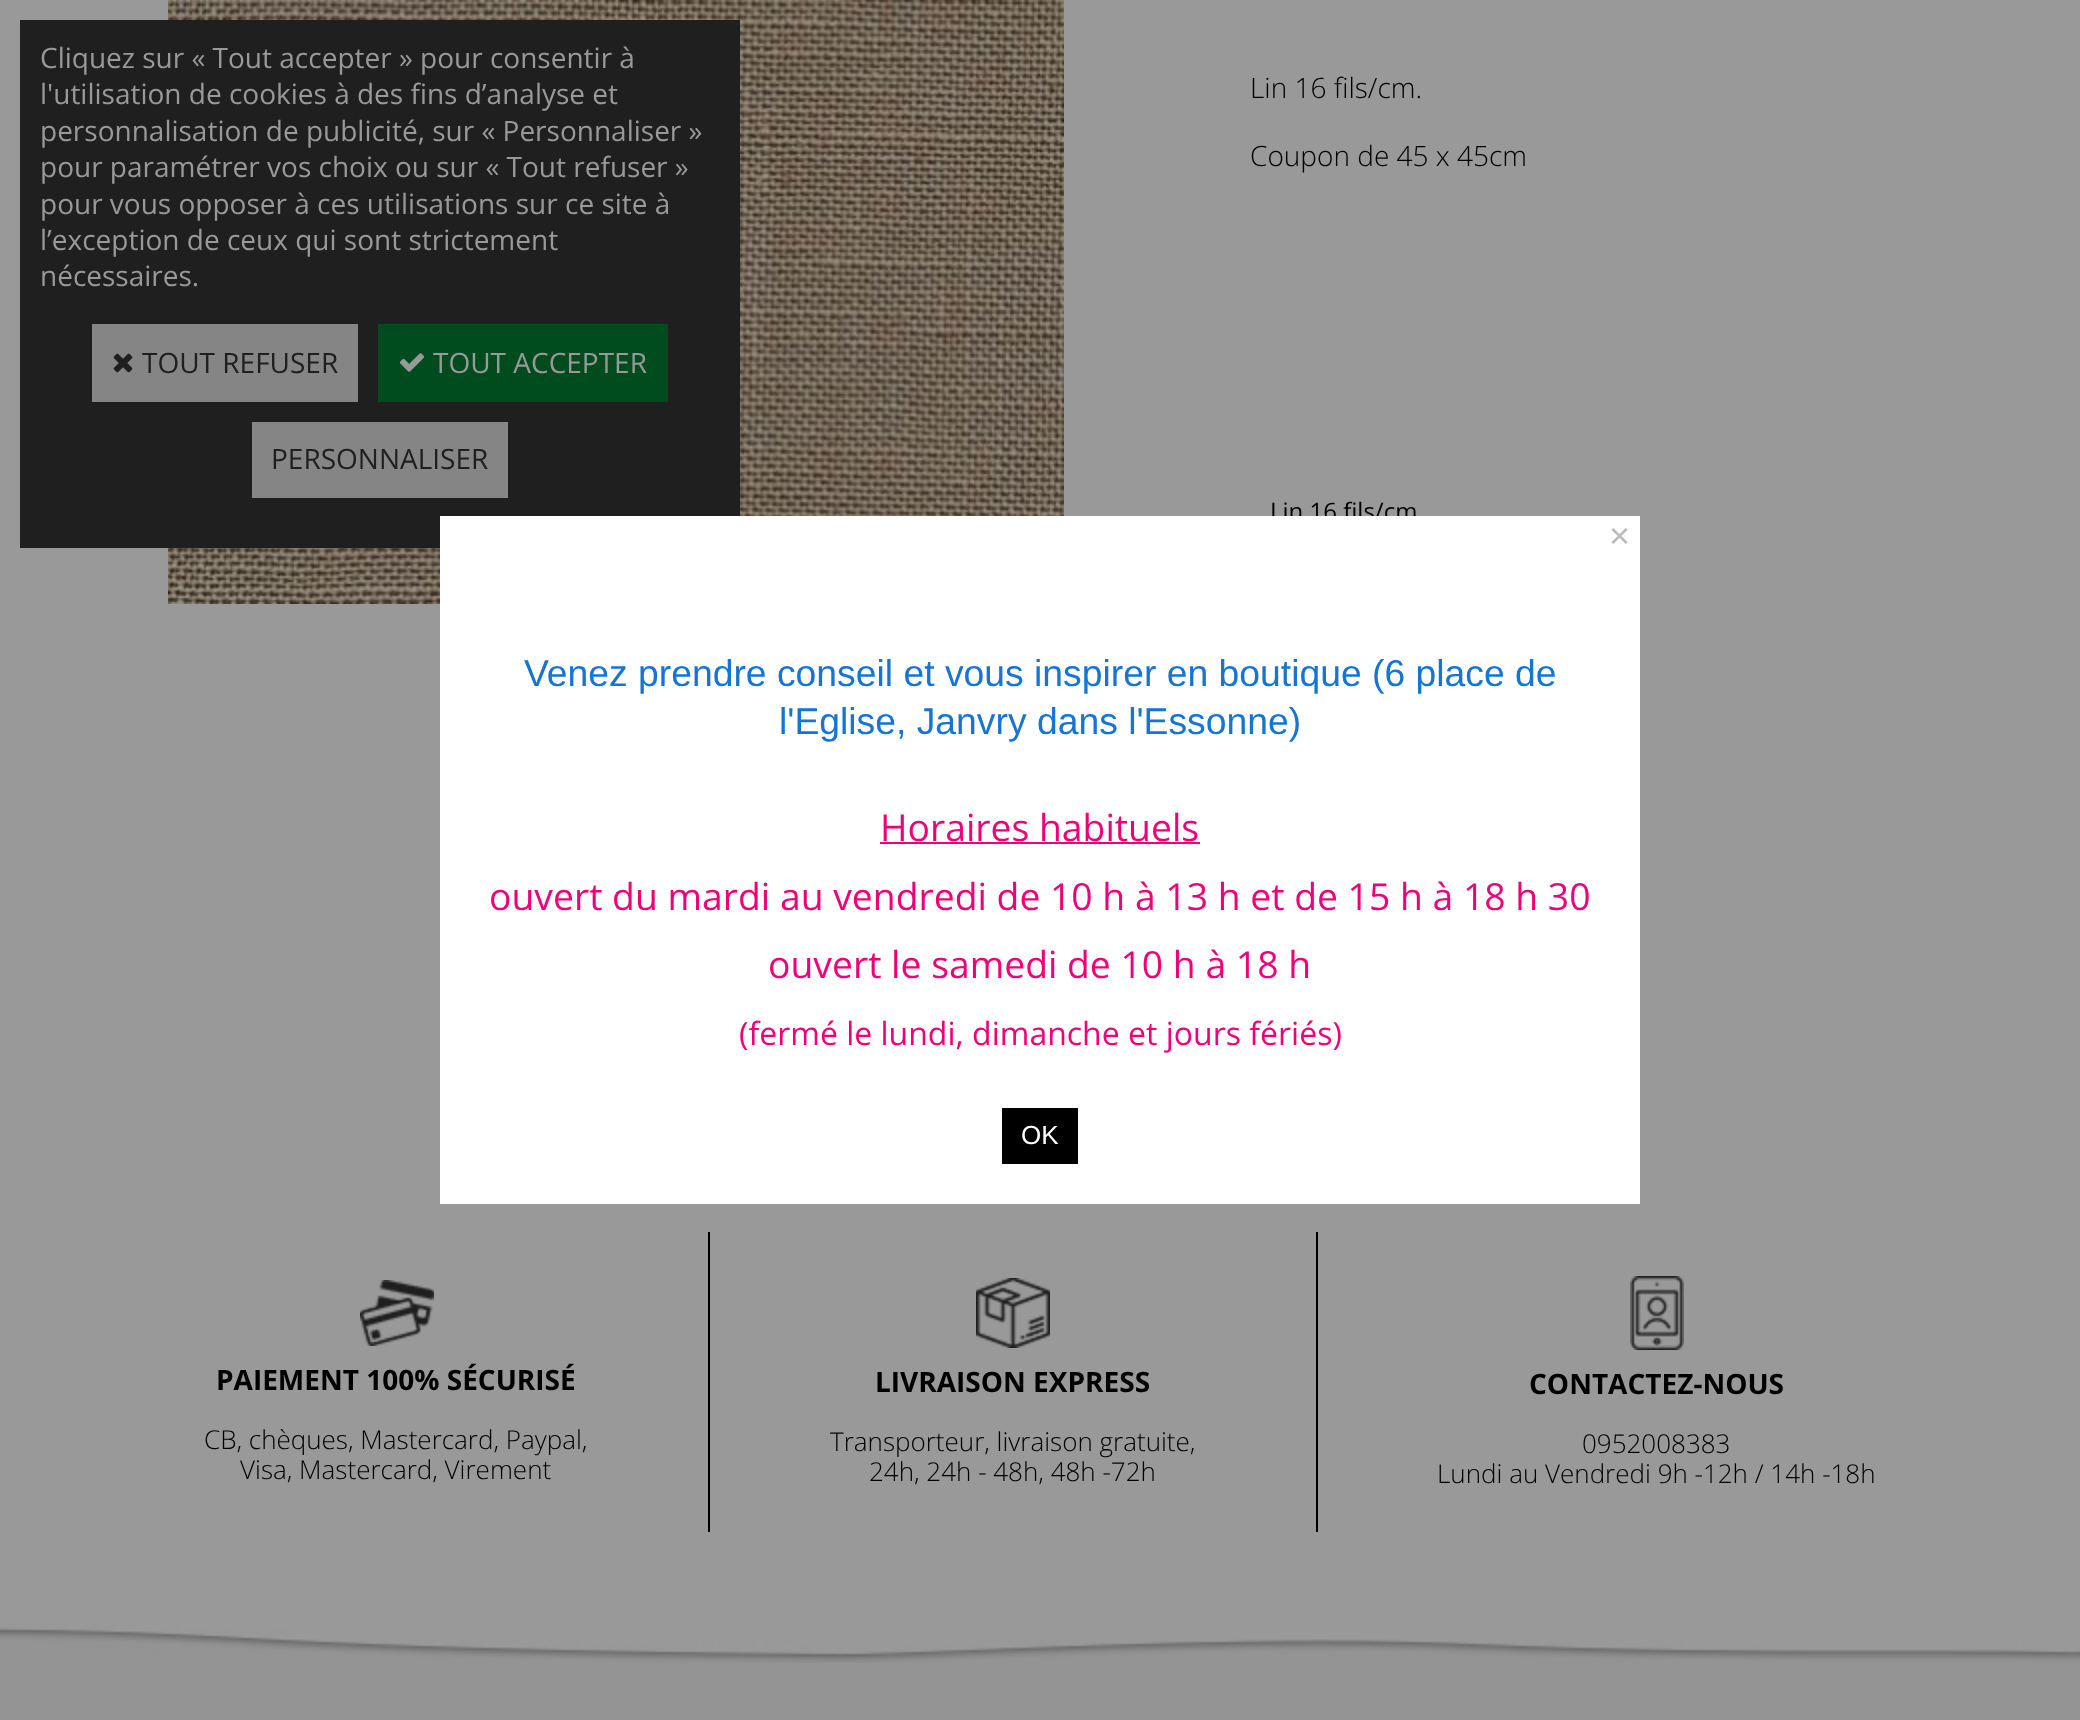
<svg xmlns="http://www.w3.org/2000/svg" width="2080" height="1720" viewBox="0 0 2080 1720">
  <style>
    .t1 { font: 28px Open Sans; fill: #999; }
    .t2 { font: 28px Open Sans; fill: #1f1f1f; }
    .t3 { font: 300 28px Open Sans; fill: #000; }
    .t4 { font: 24px Open Sans; fill: #000; }
    .t5 { font: bold 28px Open Sans; fill: #000; }
    .t6 { font: 300 26px Open Sans; fill: #000; }
    .t7 { font: 36px Liberation Sans; fill: #bbb; }
    .t8 { font: 37.3px Liberation Sans; fill: #1574d4; }
    .t9 { font: 37.3px Open Sans; fill: #ef0078; }
    .t10 { font: 32px Open Sans; fill: #ef0078; }
    .t11 { font: 26px Liberation Sans; fill: #fff; }
  </style>
  <rect width="100%" height="100%" fill="#999"/>
  <image x="168" y="0" width="896" height="604" href="images/3.png"/>
  <rect x="20" y="20" width="720" height="528" fill="#1f1f1f"/>
  <text x="40" y="68" class="t1">Cliquez sur « Tout accepter » pour consentir à</text>
  <text x="40" y="104" class="t1">l'utilisation de cookies à des fins d’analyse et</text>
  <text x="40" y="141" class="t1">personnalisation de publicité, sur « Personnaliser »</text>
  <text x="40" y="177" class="t1">pour paramétrer vos choix ou sur « Tout refuser »</text>
  <text x="40" y="214" class="t1">pour vous opposer à ces utilisations sur ce site à</text>
  <text x="40" y="250" class="t1">l’exception de ceux qui sont strictement</text>
  <text x="40" y="286" class="t1">nécessaires.</text>
  <rect x="92" y="324" width="266" height="78" fill="#858585"/>
  <image x="113" y="353" width="20" height="20" href="images/1.png"/>
  <text x="142" y="373" class="t2">TOUT REFUSER</text>
  <rect x="378" y="324" width="290" height="78" fill="#004c1f"/>
  <image x="399" y="353" width="26" height="19" href="images/2.png"/>
  <text x="433" y="373" class="t1">TOUT ACCEPTER</text>
  <rect x="252" y="422" width="256" height="76" fill="#858585"/>
  <text x="271" y="469" class="t2">PERSONNALISER</text>
  <text x="1250" y="98" class="t3">Lin 16 fils/cm.</text>
  <text x="1250" y="166" class="t3">Coupon de 45 x 45cm</text>
  <text x="1270" y="520" class="t4">Lin 16 fils/cm</text>
  <image x="360" y="1280" width="74" height="66" href="images/4.png"/>
  <text x="216" y="1390" class="t5">PAIEMENT 100% SÉCURISÉ</text>
  <text x="204" y="1449" class="t6">CB, chèques, Mastercard, Paypal,</text>
  <text x="240" y="1479" class="t6">Visa, Mastercard, Virement</text>
  <rect x="708" y="1232" width="2" height="300" fill="#000"/>
  <image x="976" y="1278" width="74" height="70" href="images/5.png"/>
  <text x="875" y="1392" class="t5">LIVRAISON EXPRESS</text>
  <text x="830" y="1451" class="t6">Transporteur, livraison gratuite,</text>
  <text x="869" y="1481" class="t6">24h, 24h - 48h, 48h -72h</text>
  <rect x="1316" y="1232" width="2" height="300" fill="#000"/>
  <image x="1630" y="1276" width="54" height="74" href="images/6.png"/>
  <text x="1529" y="1394" class="t5">CONTACTEZ-NOUS</text>
  <text x="1582" y="1453" class="t6">0952008383</text>
  <text x="1437" y="1483" class="t6">Lundi au Vendredi 9h -12h / 14h -18h</text>
  <rect x="0" y="1663" width="2080" height="57" fill="#949494"/>
  <image x="0" y="1592" width="2080" height="71" href="images/7.png"/>
  <rect x="440" y="516" width="1200" height="688" fill="#fff"/>
  <text x="1609" y="548" class="t7">×</text>
  <text x="524" y="686" class="t8">Venez prendre conseil et vous inspirer en boutique (6 place de</text>
  <text x="779" y="734" class="t8">l'Eglise, Janvry dans l'Essonne)</text>
  <text x="880" y="841" class="t9">Horaires habituels</text>
  <rect x="880" y="842" width="320" height="2" fill="#ef0078"/>
  <text x="489" y="910" class="t9">ouvert du mardi au vendredi de 10 h à 13 h et de 15 h à 18 h 30</text>
  <text x="768" y="978" class="t9">ouvert le samedi de 10 h à 18 h</text>
  <text x="739" y="1045" class="t10">(fermé le lundi, dimanche et jours fériés)</text>
  <rect x="1002" y="1108" width="76" height="56" fill="#000"/>
  <text x="1021" y="1144" class="t11">OK</text>
</svg>
